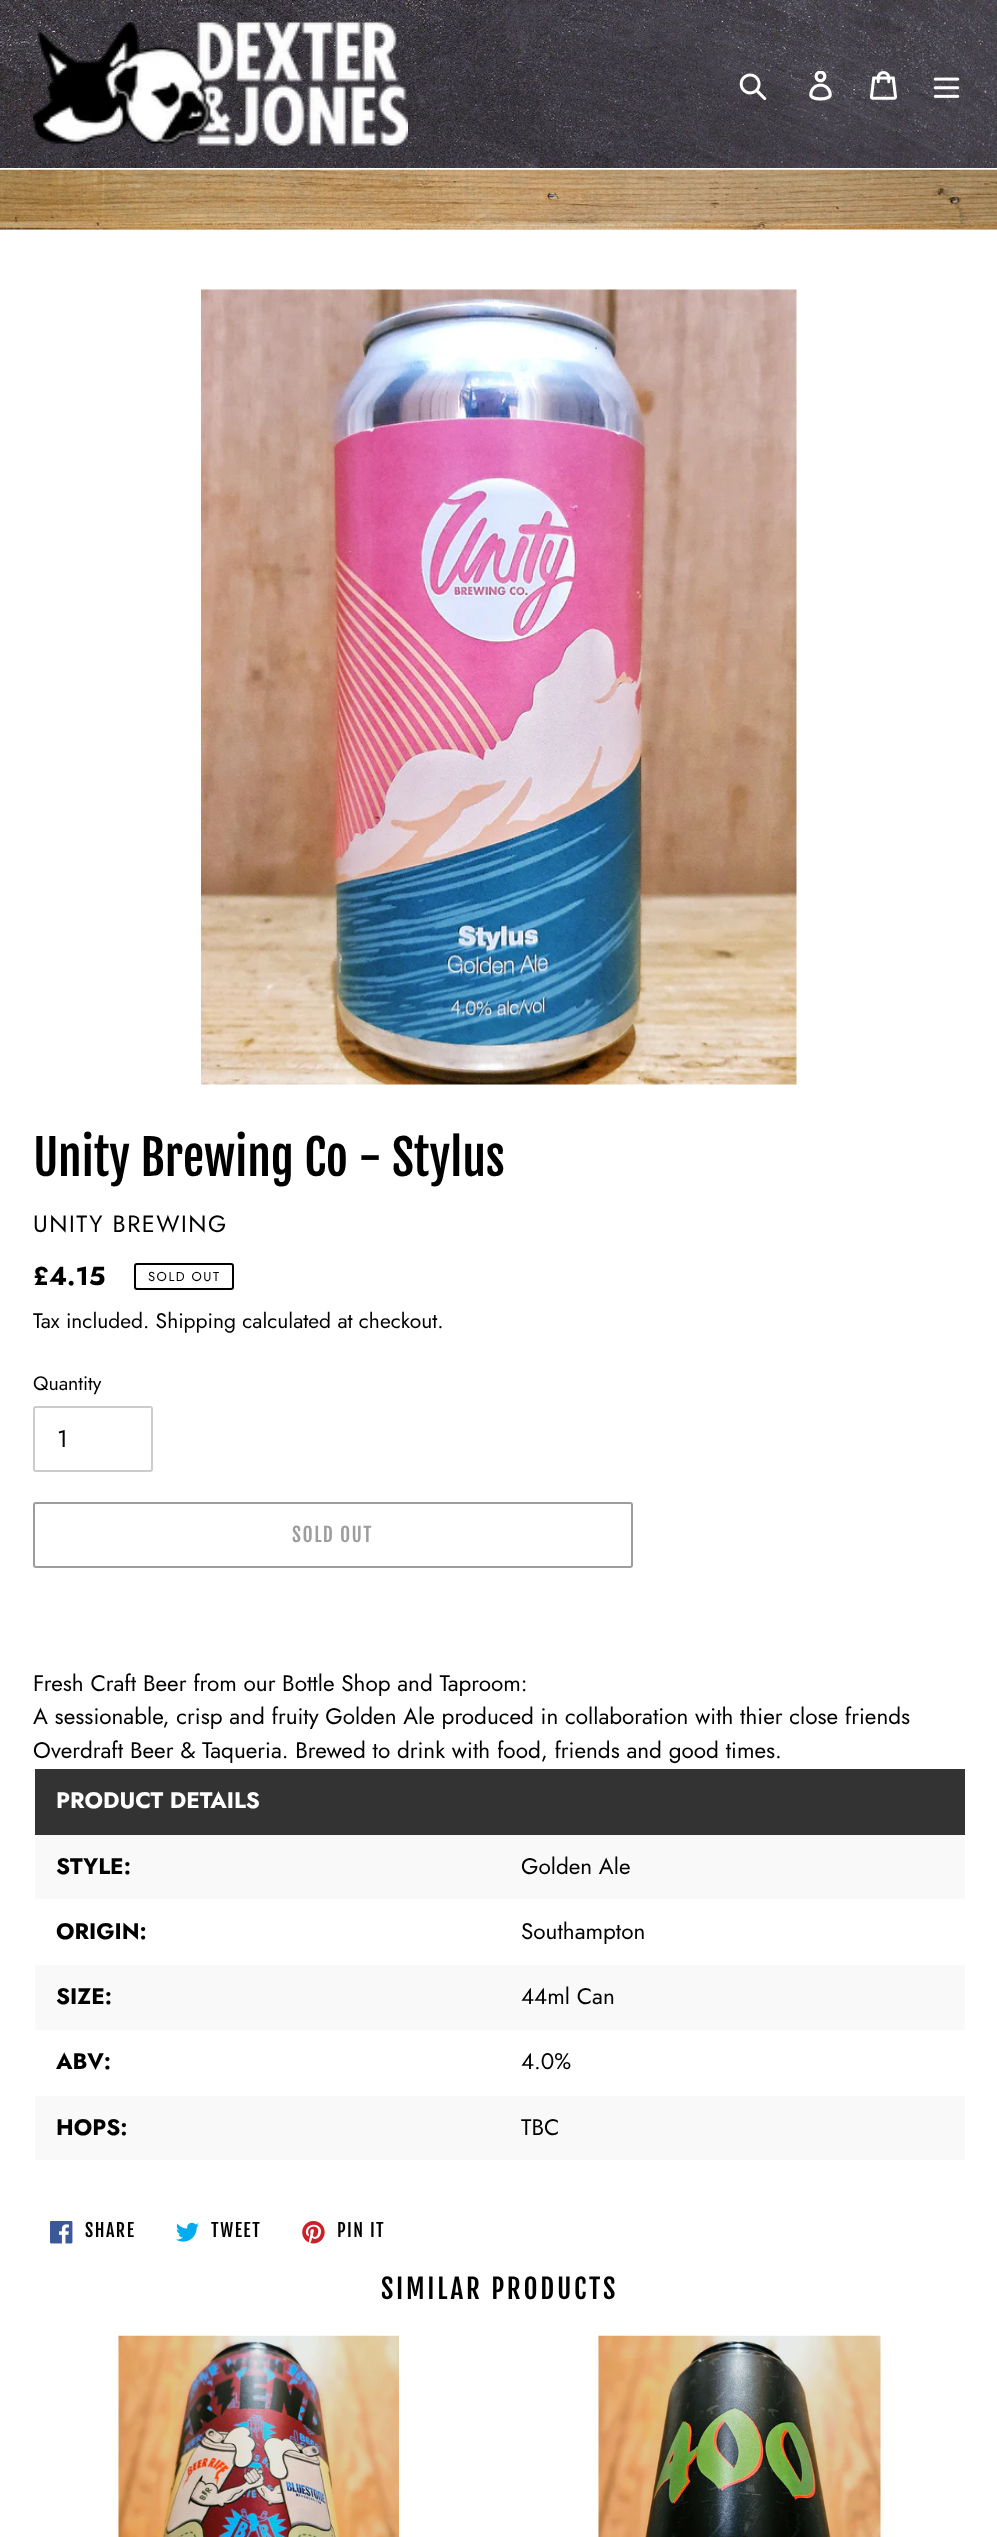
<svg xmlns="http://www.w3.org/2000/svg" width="997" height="2537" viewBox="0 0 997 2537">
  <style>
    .t1 { font: 48px Fjalla One; fill: #000; }
    .t2 { font: 23.5px Jost; letter-spacing: 1.5px; fill: #000; }
    .t3 { font: bold 26px Jost; fill: #000; }
    .t4 { font: 13px Jost; letter-spacing: 1.5px; fill: #000; }
    .t5 { font: 21px Jost; fill: #000; }
    .t6 { font: 19.5px Jost; fill: #000; }
    .t7 { font: 24px Jost; fill: #000; }
    .t8 { font: 19.5px Fjalla One; letter-spacing: 1.5px; fill: #9d9d9d; }
    .t9 { font: 22.5px Jost; fill: #000; }
    .t10 { font: bold 22.5px Jost; fill: #fff; }
    .t11 { font: bold 22.5px Jost; fill: #000; }
    .t12 { font: 18px Fjalla One; letter-spacing: 1.5px; fill: #000; }
    .t13 { font: 27px Fjalla One; letter-spacing: 2.75px; fill: #000; }
  </style>
  <rect width="100%" height="100%" fill="#fff"/>
  <image x="0" y="0" width="997" height="168" href="images/1.png"/>
  <image x="33" y="22" width="375" height="124" href="images/2.png"/>
  <image x="739" y="73" width="28" height="28" href="images/3.png"/>
  <image x="809" y="71" width="23" height="30" href="images/4.png"/>
  <image x="870" y="71" width="27" height="29" href="images/5.png"/>
  <image x="933" y="77" width="27" height="21" href="images/6.png"/>
  <rect x="0" y="229" width="997" height="1" fill="#f7f7f7"/>
  <image x="0" y="169" width="997" height="61" href="images/7.png"/>
  <image x="201" y="289" width="596" height="796" href="images/8.png"/>
  <text x="33" y="1176" class="t1">Unity Brewing Co - Stylus</text>
  <text x="33" y="1232" class="t2">UNITY BREWING</text>
  <text x="33" y="1285" class="t3">£4.15</text>
  <rect x="135" y="1264" width="98" height="25" rx="2" fill="none" stroke="#000" stroke-width="2"/>
  <text x="148" y="1281" class="t4">SOLD OUT</text>
  <text x="33" y="1328" class="t5">Tax included. Shipping calculated at checkout.</text>
  <text x="33" y="1390" class="t6">Quantity</text>
  <rect x="34" y="1407" width="118" height="64" rx="2" fill="none" stroke="#ccc" stroke-width="2"/>
  <text x="57" y="1447" class="t7">1</text>
  <rect x="34" y="1503" width="598" height="64" rx="2" fill="none" stroke="#9d9d9d" stroke-width="2"/>
  <text x="292" y="1542" class="t8">SOLD OUT</text>
  <text x="33" y="1691" class="t9">Fresh Craft Beer from our Bottle Shop and Taproom:</text>
  <text x="33" y="1724" class="t9">A sessionable, crisp and fruity Golden Ale produced in collaboration with thier close friends</text>
  <text x="33" y="1758" class="t9">Overdraft Beer &amp; Taqueria. Brewed to drink with food, friends and good times.</text>
  <rect x="35" y="1769" width="930" height="66" fill="#333"/>
  <text x="56" y="1808" class="t10">PRODUCT DETAILS</text>
  <rect x="35" y="1835" width="930" height="64" fill="#f9f9f9"/>
  <text x="56" y="1874" class="t11">STYLE:</text>
  <text x="521" y="1874" class="t9">Golden Ale</text>
  <text x="56" y="1939" class="t11">ORIGIN:</text>
  <text x="521" y="1939" class="t9">Southampton</text>
  <rect x="35" y="1965" width="930" height="65" fill="#f9f9f9"/>
  <text x="56" y="2004" class="t11">SIZE:</text>
  <text x="521" y="2004" class="t9">44ml Can</text>
  <text x="56" y="2069" class="t11">ABV:</text>
  <text x="521" y="2069" class="t9">4.0%</text>
  <rect x="35" y="2096" width="930" height="64" fill="#f9f9f9"/>
  <text x="56" y="2135" class="t11">HOPS:</text>
  <text x="521" y="2135" class="t9">TBC</text>
  <image x="50" y="2221" width="23" height="23" href="images/9.png"/>
  <text x="85" y="2237" class="t12">SHARE</text>
  <image x="176" y="2222" width="23" height="20" href="images/10.png"/>
  <text x="211" y="2237" class="t12">TWEET</text>
  <image x="302" y="2221" width="23" height="23" href="images/11.png"/>
  <text x="337" y="2237" class="t12">PIN IT</text>
  <text x="381" y="2299" class="t13">SIMILAR PRODUCTS</text>
  <image x="118" y="2335" width="281" height="202" href="images/12.png"/>
  <image x="598" y="2335" width="283" height="202" href="images/13.png"/>
</svg>
